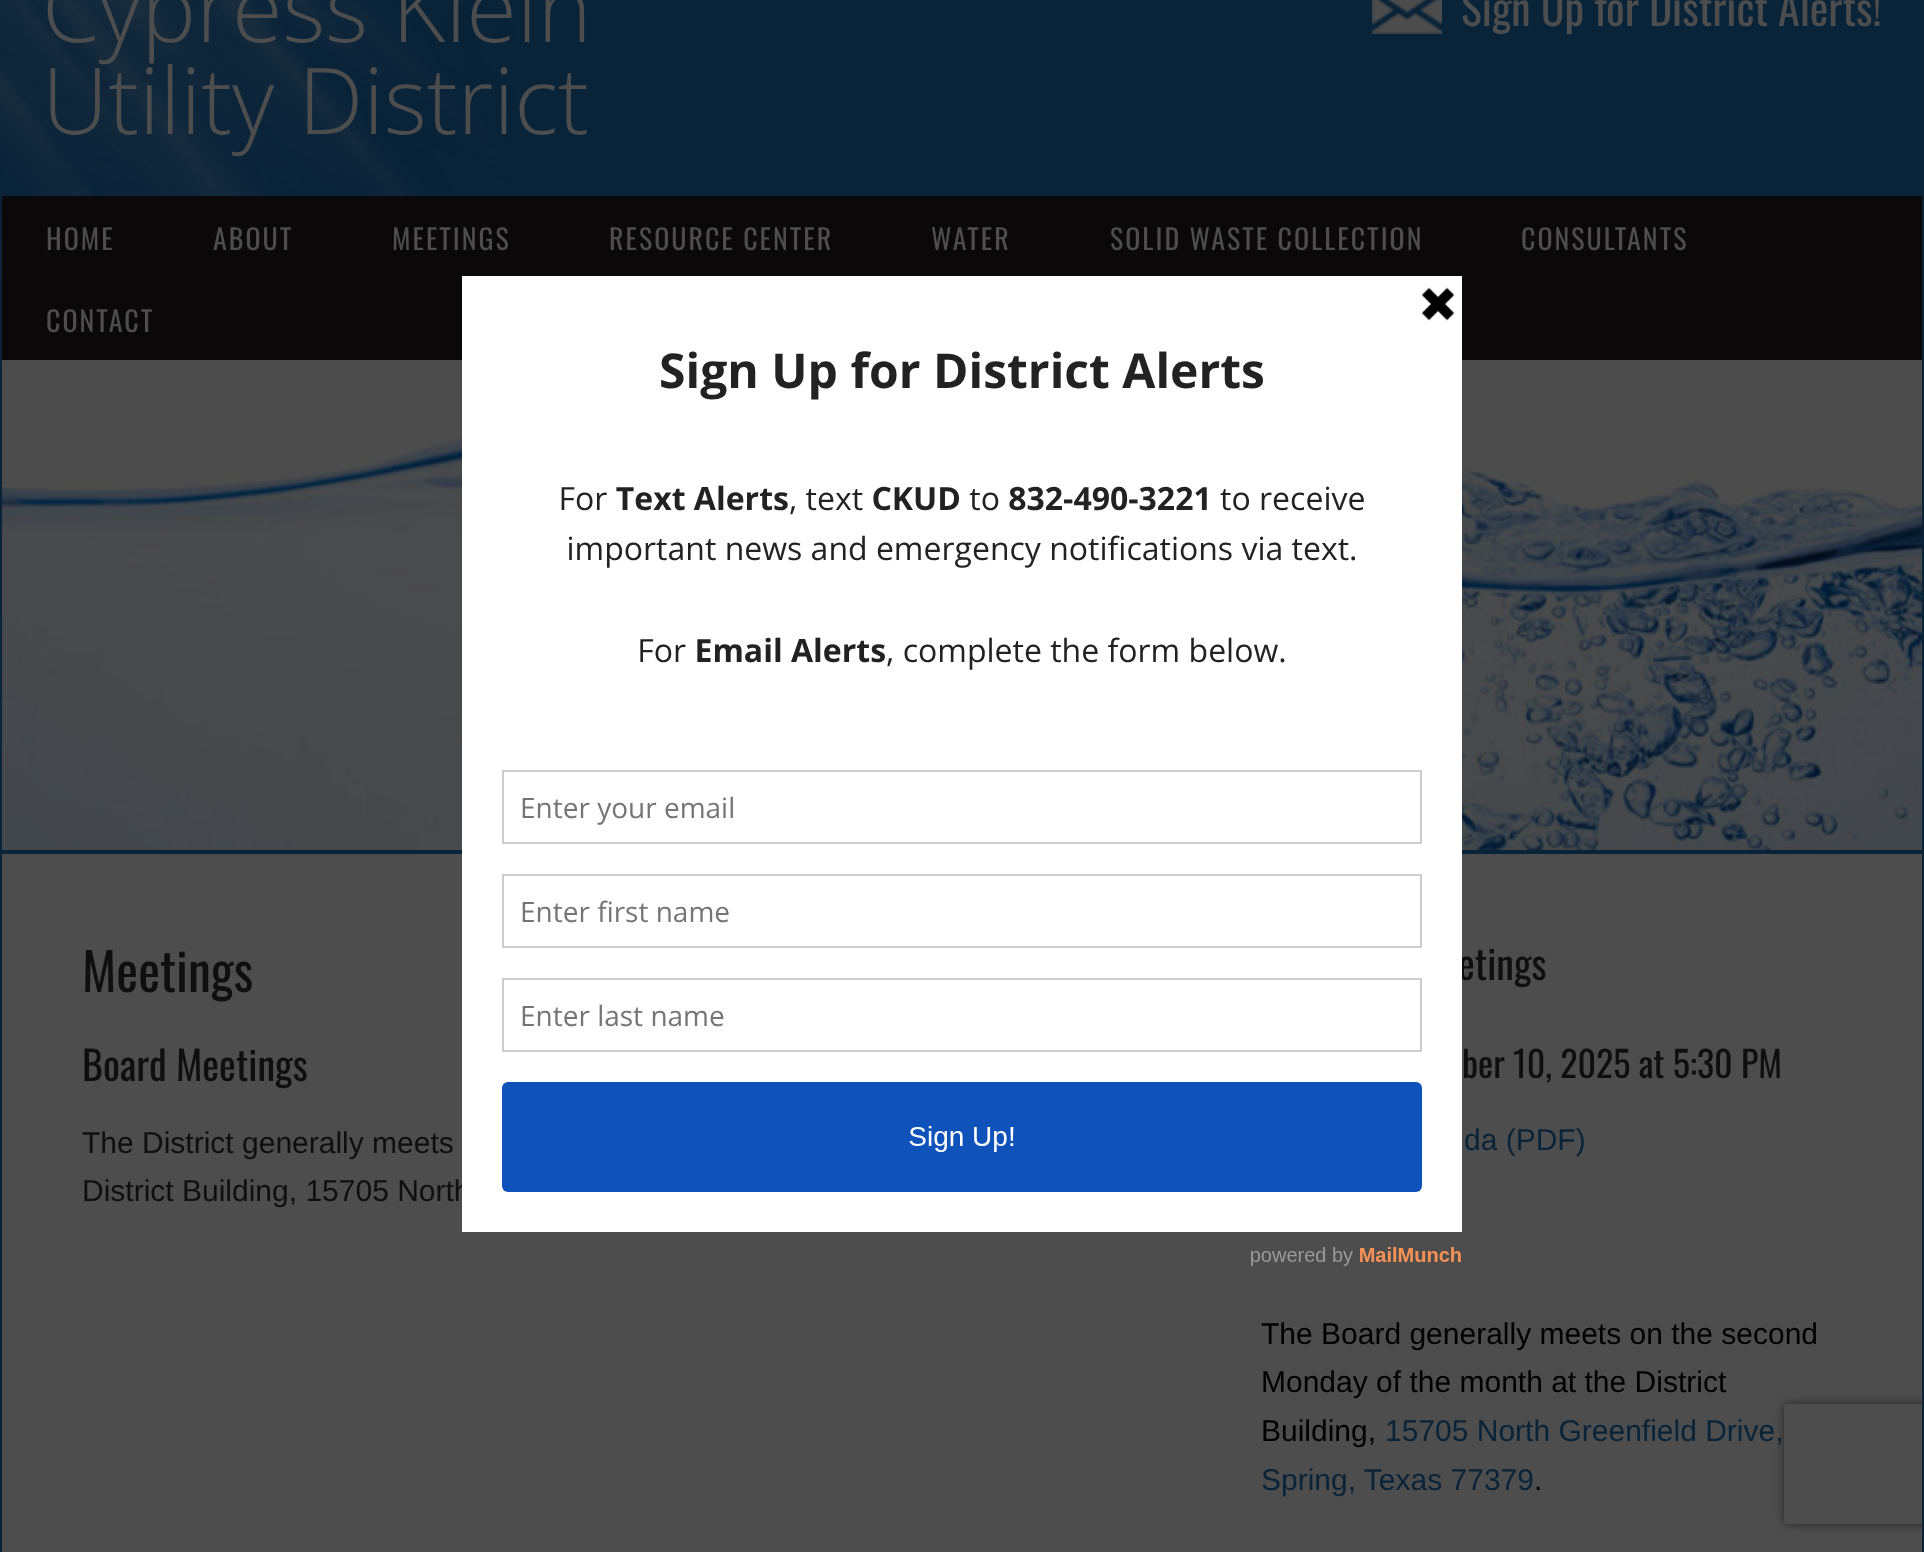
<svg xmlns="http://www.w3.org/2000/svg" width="1924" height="1552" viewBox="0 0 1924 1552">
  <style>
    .t1 { font: 300 92px Open Sans; fill: #4d4d4d; }
    .t2 { font: 44px Oswald; fill: #4d4d4d; }
    .t3 { font: 28px Oswald; letter-spacing: 2px; fill: #4d4d4d; }
    .t4 { font: 52px Oswald; fill: #0f0f0f; }
    .t5 { font: 40px Oswald; fill: #0f0f0f; }
    .t6 { font: 30px Liberation Sans; fill: #0f0f0f; }
    .t7 { font: 36px Oswald; fill: #0f0f0f; }
    .t8 { font: 30px Liberation Sans; fill: #092339; }
    .t9 { font: 30px Liberation Sans; fill: #000; }
  </style>
  <defs>
    <clipPath id="clip1"><path d="M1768 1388H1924V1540H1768ZM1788 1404H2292C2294 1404 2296 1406 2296 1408V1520C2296 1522 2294 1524 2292 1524H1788C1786 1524 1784 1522 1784 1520V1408C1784 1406 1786 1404 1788 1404Z" clip-rule="evenodd"/></clipPath>
  </defs>
  <rect width="100%" height="100%" fill="#092339"/>
  <image x="0" y="0" width="515" height="375" href="images/1.png"/>
  <text x="42" y="42" class="t1">Cypress Klein</text>
  <text x="42" y="134" class="t1">Utility District</text>
  <image x="1372" y="0" width="70" height="34" href="images/2.png"/>
  <text x="1461" y="26" class="t2">Sign Up for District Alerts!</text>
  <rect x="2" y="196" width="1920" height="164" fill="#0a0808"/>
  <text x="46" y="250" class="t3">HOME</text>
  <text x="213" y="250" class="t3">ABOUT</text>
  <text x="392" y="250" class="t3">MEETINGS</text>
  <text x="609" y="250" class="t3">RESOURCE CENTER</text>
  <text x="931" y="250" class="t3">WATER</text>
  <text x="1110" y="250" class="t3">SOLID WASTE COLLECTION</text>
  <text x="1521" y="250" class="t3">CONSULTANTS</text>
  <text x="46" y="332" class="t3">CONTACT</text>
  <image x="2" y="360" width="1920" height="490" href="images/3.png"/>
  <rect x="2" y="854" width="1920" height="698" fill="#4d4d4d"/>
  <text x="82" y="992" class="t4">Meetings</text>
  <text x="82" y="1081" class="t5">Board Meetings</text>
  <text x="82" y="1153" class="t6">The District generally meets</text>
  <text x="82" y="1201" class="t6">District Building, 15705 North</text>
  <text x="1458" y="980" class="t5">etings</text>
  <text x="1462" y="1078" class="t7">ber 10, 2025 at 5:30 PM</text>
  <text x="1464" y="1150" class="t8">da (PDF)</text>
  <text x="1261" y="1344" class="t9">The Board generally meets on the second</text>
  <text x="1261" y="1392" class="t9">Monday of the month at the District</text>
  <text x="1261" y="1441" class="t9">Building,</text>
  <text x="1385" y="1441" class="t8">15705 North Greenfield Drive,</text>
  <text x="1261" y="1490" class="t8">Spring, Texas 77379</text>
  <text x="1534" y="1490" class="t9">.</text>
  <image x="462" y="276" width="1000" height="990" href="images/4.png"/>
  <g clip-path="url(#clip1)">
    <rect x="1784" y="1404" width="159" height="120" rx="4" fill="#262626" filter="blur(5px)"/>
  </g>
</svg>
